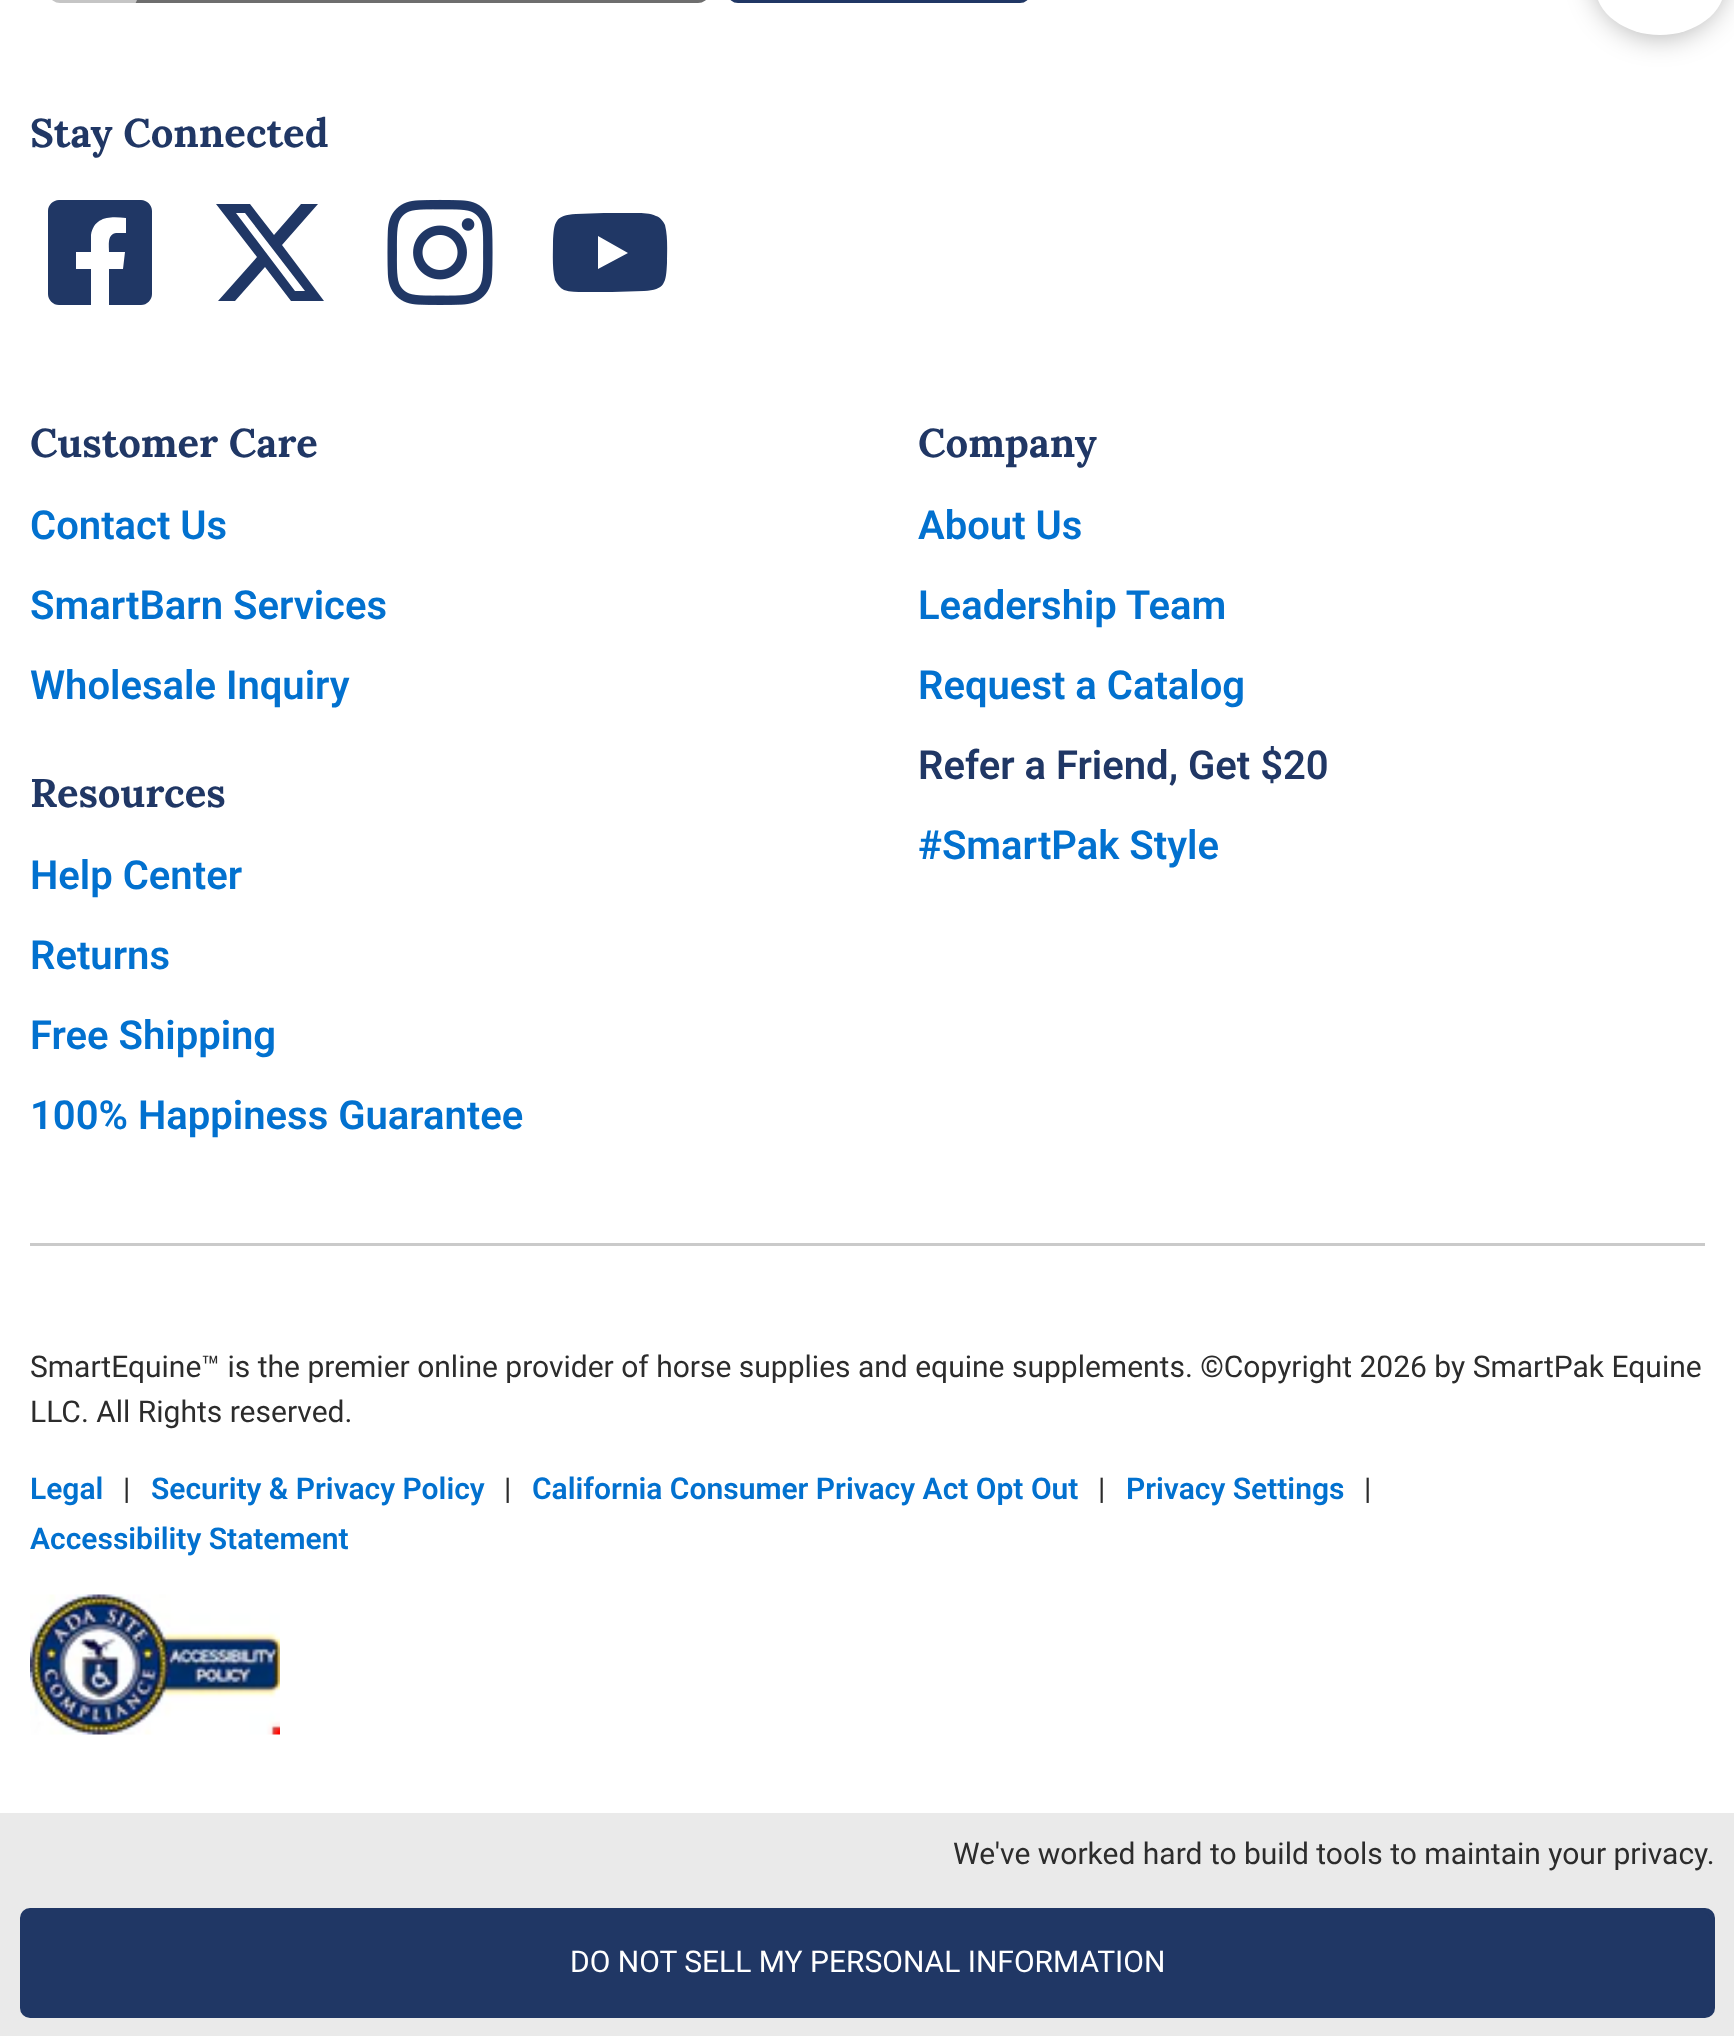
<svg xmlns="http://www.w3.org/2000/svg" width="1734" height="2036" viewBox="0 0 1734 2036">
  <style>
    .t1 { font: bold 40px Lora; fill: #203765; }
    .t2 { font: 600 40px Roboto; fill: #0271cf; }
    .t3 { font: 600 40px Roboto; fill: #203765; }
    .t4 { font: 30px Roboto; fill: #2c2c2c; }
    .t5 { font: 600 30px Roboto; fill: #0271cf; }
    .t6 { font: 30px Roboto; fill: #fff; }
  </style>
  <rect width="100%" height="100%" fill="#fff"/>
  <rect x="51.5" y="-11.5" width="655" height="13" rx="8.5" fill="none" stroke="#6e6e6e" stroke-width="3"/>
  <rect x="10" y="-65" width="130" height="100" rx="65" fill="#ffffff99"/>
  <rect x="1595" y="-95" width="130" height="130" rx="65" fill="#00000059" filter="blur(15px)"/>
  <rect x="1595" y="-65" width="130" height="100" rx="65" fill="#fff"/>
  <rect x="730.5" y="-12.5" width="297" height="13" rx="7.5" fill="none" stroke="#203765" stroke-width="5"/>
  <text x="30" y="147" class="t1">Stay Connected</text>
  <path d="M141 200H59C53 200 48 205 48 211V294C48 300 53 305 59 305H91V269H76V252H91V235C94 216 111 216 126 218V233H116C107 234 109 246 109 252H125L123 269H109V305H141C147 305 152 300 152 294V211C152 205 147 200 141 200Z" fill="#203765"/>
  <path d="M301 204H318L282 245L324 301H291L265 267L235 301H218L257 257L216 204H250L274 235ZM295 291H305L245 213H236Z" fill="#203765"/>
  <image x="387" y="199" width="106" height="106" href="images/1.png"/>
  <path d="M665 225C663 221 660 217 656 216C650 213 643 213 636 213H604L576 214C555 215 554 222 553 242C553 255 552 268 555 280C557 284 560 288 564 290C570 292 577 292 584 292H612L644 291C665 290 666 283 667 263C667 251 668 237 665 225ZM598 269V236L628 253Z" fill="#203765"/>
  <text x="30" y="457" class="t1">Customer Care</text>
  <text x="30" y="539" class="t2">Contact Us</text>
  <text x="30" y="619" class="t2">SmartBarn Services</text>
  <text x="30" y="699" class="t2">Wholesale Inquiry</text>
  <text x="30" y="807" class="t1">Resources</text>
  <text x="30" y="889" class="t2">Help Center</text>
  <text x="30" y="969" class="t2">Returns</text>
  <text x="30" y="1049" class="t2">Free Shipping</text>
  <text x="30" y="1129" class="t2">100% Happiness Guarantee</text>
  <text x="918" y="457" class="t1">Company</text>
  <text x="918" y="539" class="t2">About Us</text>
  <text x="918" y="619" class="t2">Leadership Team</text>
  <text x="918" y="699" class="t2">Request a Catalog</text>
  <text x="918" y="779" class="t3">Refer a Friend, Get $20</text>
  <text x="918" y="859" class="t2">#SmartPak Style</text>
  <rect x="30" y="1243" width="1675" height="3" fill="#cacaca"/>
  <text x="30" y="1377" class="t4">SmartEquine™ is the premier online provider of horse supplies and equine supplements. ©Copyright 2026 by SmartPak Equine</text>
  <text x="30" y="1422" class="t4">LLC. All Rights reserved.</text>
  <text x="30" y="1499" class="t5">Legal</text>
  <text x="123" y="1499" class="t4">|</text>
  <text x="151" y="1499" class="t5">Security &amp; Privacy Policy</text>
  <text x="504" y="1499" class="t4">|</text>
  <text x="532" y="1499" class="t5">California Consumer Privacy Act Opt Out</text>
  <text x="1098" y="1499" class="t4">|</text>
  <text x="1126" y="1499" class="t5">Privacy Settings</text>
  <text x="1364" y="1499" class="t4">|</text>
  <text x="30" y="1549" class="t5">Accessibility Statement</text>
  <image x="30" y="1594" width="250" height="141" href="images/2.png"/>
  <rect x="0" y="1813" width="1734" height="223" fill="#eaeaea"/>
  <text x="953" y="1864" class="t4">We've worked hard to build tools to maintain your privacy.</text>
  <rect x="22.5" y="1910.5" width="1690" height="105" rx="7.5" fill="#203765" stroke="#203765" stroke-width="5"/>
  <text x="570" y="1972" class="t6">DO NOT SELL MY PERSONAL INFORMATION</text>
</svg>
